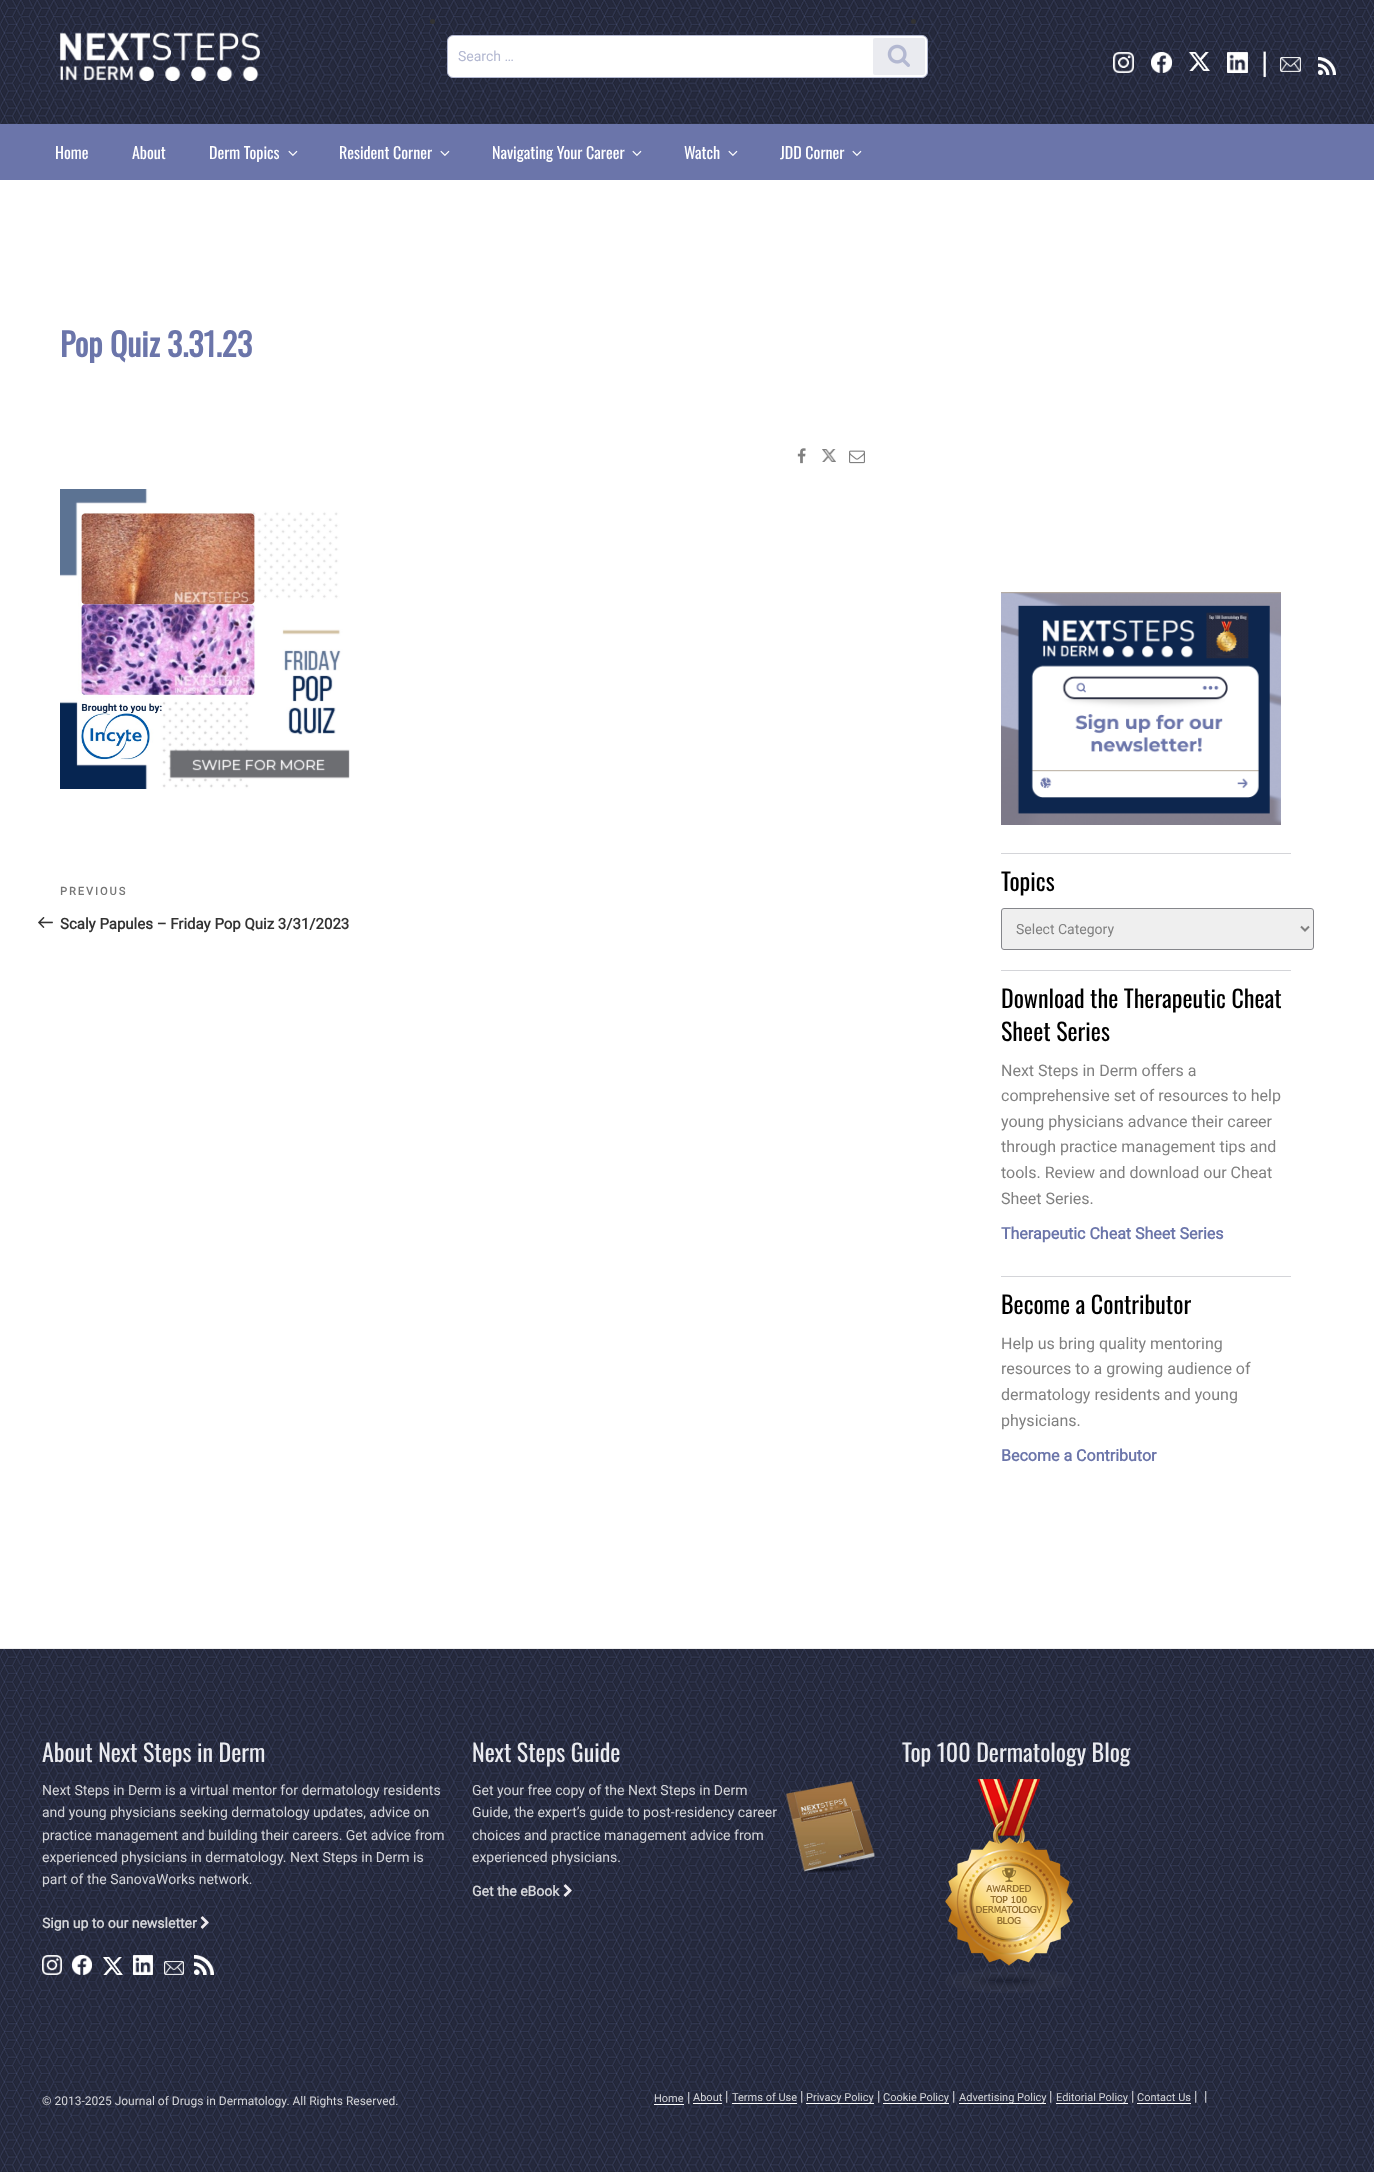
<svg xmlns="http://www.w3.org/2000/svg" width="1374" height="2172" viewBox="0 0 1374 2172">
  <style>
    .t1 { font: 14px Roboto; fill: #b3b8d1; }
    .t2 { font: 30px Roboto; fill: #fff; }
    .t3 { font: 16px Oswald; fill: #fff; }
    .t4 { font: bold 32px Oswald; fill: #6b75aa; }
    .t5 { font: bold 11px Roboto; letter-spacing: 2px; fill: #767676; }
    .t6 { font: bold 15px Roboto; fill: #333; }
    .t7 { font: 24px Oswald; fill: #000; }
    .t8 { font: 14px Roboto; fill: #808080; }
    .t9 { font: 16px Roboto; fill: #808080; }
    .t10 { font: bold 16px Roboto; fill: #6b75aa; }
    .t11 { font: 24px Oswald; fill: #eaebf0; }
    .t12 { font: 14px Roboto; fill: #d4d5d9; }
    .t13 { font: bold 14px Roboto; fill: #d4d5d9; }
    .t14 { font: 11px Roboto; fill: #d4d5d9; }
    .t15 { font: 12px Roboto; fill: #d4d5d9; }
  </style>
  <rect width="100%" height="100%" fill="#fff"/>
  <image x="0" y="0" width="1374" height="124" href="images/1.png"/>
  <image x="60" y="32" width="200" height="49" href="images/2.png"/>
  <circle cx="432.5" cy="21.5" r="2.5" fill="#333"/>
  <rect x="447.5" y="35.5" width="480" height="42" rx="5.5" fill="#fff" stroke="#b3b8d1"/>
  <text x="458" y="61" class="t1">Search …</text>
  <rect x="873" y="38" width="52" height="37" rx="2" fill="#eaebf0"/>
  <image x="887" y="44" width="23" height="23" href="images/3.png"/>
  <circle cx="913.5" cy="21.5" r="2.5" fill="#333"/>
  <image x="1113" y="52" width="21" height="21" href="images/4.png"/>
  <image x="1151" y="52" width="21" height="21" href="images/5.png"/>
  <image x="1189" y="52" width="21" height="19" href="images/6.png"/>
  <image x="1227" y="52" width="21" height="21" href="images/7.png"/>
  <text x="1261" y="73" class="t2">|</text>
  <image x="1280" y="57" width="21" height="15" href="images/8.png"/>
  <image x="1318" y="57" width="18" height="18" href="images/9.png"/>
  <rect x="0" y="124" width="1374" height="56" fill="#6b75aa"/>
  <text x="55" y="159" class="t3">Home</text>
  <text x="132" y="159" class="t3">About</text>
  <text x="209" y="159" class="t3">Derm Topics</text>
  <image x="288" y="150" width="10" height="6" href="images/10.png"/>
  <text x="339" y="159" class="t3">Resident Corner</text>
  <image x="440" y="150" width="10" height="6" href="images/10.png"/>
  <text x="492" y="159" class="t3">Navigating Your Career</text>
  <image x="632" y="150" width="10" height="6" href="images/10.png"/>
  <text x="684" y="159" class="t3">Watch</text>
  <image x="728" y="150" width="10" height="6" href="images/10.png"/>
  <text x="780" y="159" class="t3">JDD Corner</text>
  <image x="852" y="150" width="10" height="6" href="images/10.png"/>
  <text x="60" y="357" class="t4">Pop Quiz 3.31.23</text>
  <image x="797" y="448" width="9" height="16" href="images/11.png"/>
  <image x="822" y="449" width="14" height="13" href="images/12.png"/>
  <image x="849" y="450" width="16" height="14" href="images/13.png"/>
  <image x="60" y="489" width="290" height="300" href="images/14.png"/>
  <text x="60" y="895" class="t5">PREVIOUS</text>
  <image x="38" y="917" width="15" height="11" href="images/15.png"/>
  <text x="60" y="929" class="t6">Scaly Papules – Friday Pop Quiz 3/31/2023</text>
  <image x="1001" y="592" width="280" height="233" href="images/16.png"/>
  <rect x="1001" y="853" width="290" height="1" fill="#d4d5d9"/>
  <text x="1001" y="891" class="t7">Topics</text>
  <rect x="1001.5" y="908.5" width="312" height="41" rx="2.5" fill="#efefef" stroke="#85868b"/>
  <path d="M1301 926.5L1305 930.5L1309 926.5" fill="none" stroke="#808080" stroke-width="2"/>
  <text x="1016" y="934" class="t8">Select Category</text>
  <rect x="1001" y="970" width="290" height="1" fill="#d4d5d9"/>
  <text x="1001" y="1008" class="t7">Download the Therapeutic Cheat</text>
  <text x="1001" y="1041" class="t7">Sheet Series</text>
  <text x="1001" y="1076" class="t9">Next Steps in Derm offers a</text>
  <text x="1001" y="1101" class="t9">comprehensive set of resources to help</text>
  <text x="1001" y="1127" class="t9">young physicians advance their career</text>
  <text x="1001" y="1152" class="t9">through practice management tips and</text>
  <text x="1001" y="1178" class="t9">tools. Review and download our Cheat</text>
  <text x="1001" y="1204" class="t9">Sheet Series.</text>
  <text x="1001" y="1239" class="t10">Therapeutic Cheat Sheet Series</text>
  <rect x="1001" y="1276" width="290" height="1" fill="#d4d5d9"/>
  <text x="1001" y="1314" class="t7">Become a Contributor</text>
  <text x="1001" y="1349" class="t9">Help us bring quality mentoring</text>
  <text x="1001" y="1374" class="t9">resources to a growing audience of</text>
  <text x="1001" y="1400" class="t9">dermatology residents and young</text>
  <text x="1001" y="1426" class="t9">physicians.</text>
  <text x="1001" y="1461" class="t10">Become a Contributor</text>
  <image x="0" y="1649" width="1374" height="523" href="images/17.png"/>
  <rect x="0" y="1648" width="1374" height="1" fill="#eee"/>
  <text x="42" y="1762" class="t11">About Next Steps in Derm</text>
  <text x="42" y="1795" class="t12">Next Steps in Derm is a virtual mentor for dermatology residents</text>
  <text x="42" y="1817" class="t12">and young physicians seeking dermatology updates, advice on</text>
  <text x="42" y="1840" class="t12">practice management and building their careers. Get advice from</text>
  <text x="42" y="1862" class="t12">experienced physicians in dermatology. Next Steps in Derm is</text>
  <text x="42" y="1884" class="t12">part of the SanovaWorks network.</text>
  <text x="42" y="1928" class="t13">Sign up to our newsletter</text>
  <image x="200" y="1916" width="9" height="13" href="images/18.png"/>
  <image x="42" y="1955" width="20" height="20" href="images/19.png"/>
  <image x="72" y="1955" width="20" height="20" href="images/20.png"/>
  <image x="103" y="1957" width="20" height="18" href="images/21.png"/>
  <image x="133" y="1955" width="20" height="20" href="images/22.png"/>
  <image x="164" y="1961" width="20" height="14" href="images/23.png"/>
  <image x="194" y="1955" width="20" height="20" href="images/24.png"/>
  <text x="472" y="1762" class="t11">Next Steps Guide</text>
  <text x="472" y="1795" class="t12">Get your free copy of the Next Steps in Derm</text>
  <text x="472" y="1817" class="t12">Guide, the expert’s guide to post-residency career</text>
  <text x="472" y="1840" class="t12">choices and practice management advice from</text>
  <text x="472" y="1862" class="t12">experienced physicians.</text>
  <image x="786" y="1781" width="89" height="92" href="images/25.png"/>
  <text x="472" y="1896" class="t13">Get the eBook</text>
  <image x="563" y="1884" width="9" height="13" href="images/26.png"/>
  <text x="902" y="1762" class="t11">Top 100 Dermatology Blog</text>
  <image x="945" y="1779" width="128" height="214" href="images/27.png"/>
  <text x="654" y="2102" class="t14">Home</text>
  <rect x="654" y="2104" width="30" height="1" fill="#fff"/>
  <text x="687" y="2102" class="t12">|</text>
  <text x="693" y="2101" class="t14">About</text>
  <rect x="693" y="2103" width="29" height="1" fill="#fff"/>
  <text x="725" y="2101" class="t12">|</text>
  <text x="732" y="2101" class="t14">Terms of Use</text>
  <rect x="732" y="2103" width="65" height="1" fill="#fff"/>
  <text x="800" y="2101" class="t12">|</text>
  <rect x="806" y="2103" width="68" height="1" fill="#fff"/>
  <text x="806" y="2101" class="t14">Privacy Policy</text>
  <text x="877" y="2101" class="t12">|</text>
  <rect x="883" y="2103" width="66" height="1" fill="#fff"/>
  <text x="883" y="2101" class="t14">Cookie Policy</text>
  <text x="952" y="2101" class="t12">|</text>
  <rect x="959" y="2103" width="87" height="1" fill="#fff"/>
  <text x="959" y="2101" class="t14">Advertising Policy</text>
  <text x="1049" y="2101" class="t12">|</text>
  <rect x="1056" y="2103" width="72" height="1" fill="#fff"/>
  <text x="1056" y="2101" class="t14">Editorial Policy</text>
  <text x="1131" y="2101" class="t12">|</text>
  <text x="1137" y="2101" class="t14">Contact Us</text>
  <rect x="1137" y="2103" width="54" height="1" fill="#fff"/>
  <text x="1194" y="2101" class="t12">|</text>
  <text x="1204" y="2101" class="t12">|</text>
  <text x="42" y="2105" class="t15">© 2013-2025 Journal of Drugs in Dermatology. All Rights Reserved.</text>
</svg>
